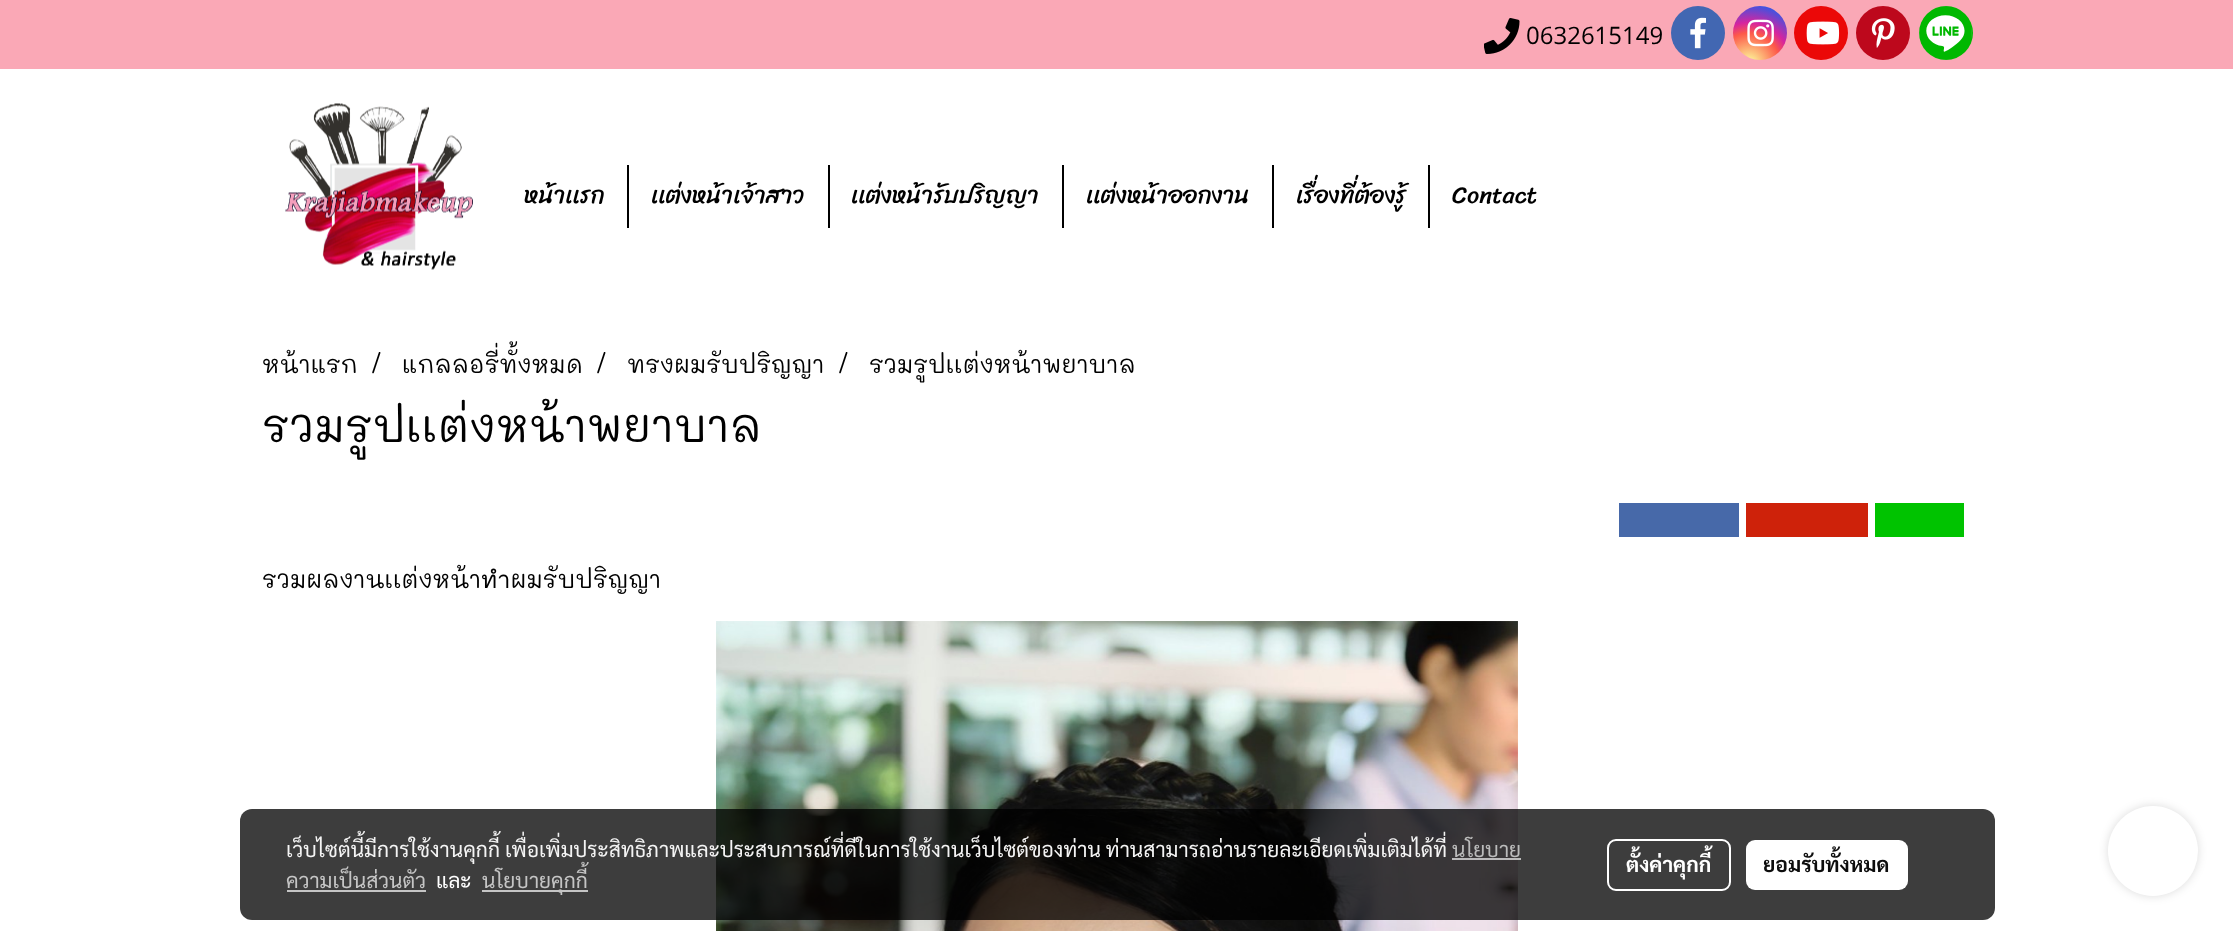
<svg xmlns="http://www.w3.org/2000/svg" width="2233" height="931" viewBox="0 0 2233 931">
  <style>
    .t1 { font: 24px Open Sans; fill: #000; }
    .t2 { font: 24px Sriracha; fill: #000; }
    .t3 { font: 24px Mali; fill: #000; }
    .t4 { font: 45px Mali; fill: #000; }
    .t5 { font: 21px Sarabun; fill: #f4f4f4; }
    .t6 { font: 21px Sarabun; fill: #bbb; }
    .t7 { font: 21px Sarabun; fill: #c5c5c5; }
    .t8 { font: 21px Sarabun; fill: #fff; }
    .t9 { font: bold 21px Sarabun; fill: #fff; }
    .t10 { font: bold 21px Sarabun; fill: #0d0d0d; }
  </style>
  <defs>
    <radialGradient id="g1" gradientUnits="userSpaceOnUse" cx="1749" cy="64" r="69"><stop offset="0" stop-color="#fdf497"/><stop offset="0.05" stop-color="#fdf497"/><stop offset="0.45" stop-color="#fd5949"/><stop offset="0.6" stop-color="#d6249f"/><stop offset="0.9" stop-color="#285aeb"/></radialGradient>
  </defs>
  <rect width="100%" height="100%" fill="#fff"/>
  <rect x="0" y="0" width="2233" height="69" fill="#faa8b6"/>
  <image x="1484" y="18" width="36" height="36" href="images/1.png"/>
  <text x="1526" y="44" class="t1">0632615149</text>
  <circle cx="1698" cy="33" r="27" fill="#4267b2"/>
  <image x="1690" y="17" width="16" height="32" href="images/2.png"/>
  <circle cx="1760" cy="33" r="27" fill="url(#g1)"/>
  <image x="1747" y="19" width="27" height="28" href="images/3.png"/>
  <circle cx="1821" cy="33" r="27" fill="#eb0808"/>
  <image x="1806" y="21" width="34" height="24" href="images/4.png"/>
  <circle cx="1883" cy="33" r="27" fill="#bd081c"/>
  <image x="1871" y="18" width="24" height="30" href="images/5.png"/>
  <circle cx="1946" cy="33" r="27" fill="#00b800"/>
  <image x="1919" y="6" width="53" height="54" href="images/6.png"/>
  <image x="285" y="103" width="188" height="167" href="images/7.png"/>
  <rect x="627" y="165" width="2" height="63" fill="#000"/>
  <text x="524" y="203" class="t2">หน้าเเรก</text>
  <rect x="828" y="165" width="2" height="63" fill="#000"/>
  <text x="651" y="203" class="t2">เเต่งหน้าเจ้าสาว</text>
  <rect x="1062" y="165" width="2" height="63" fill="#000"/>
  <text x="851" y="203" class="t2">เเต่งหน้ารับปริญญา</text>
  <rect x="1272" y="165" width="2" height="63" fill="#000"/>
  <text x="1086" y="203" class="t2">เเต่งหน้าออกงาน</text>
  <rect x="1428" y="165" width="2" height="63" fill="#000"/>
  <text x="1296" y="203" class="t2">เรื่องที่ต้องรู้</text>
  <text x="1452" y="203" class="t2">Contact</text>
  <text x="262" y="373" class="t3">หน้าแรก</text>
  <text x="370" y="373" class="t3">/</text>
  <text x="402" y="373" class="t3">แกลลอรี่ทั้งหมด</text>
  <text x="595" y="373" class="t3">/</text>
  <text x="627" y="373" class="t3">ทรงผมรับปริญญา</text>
  <text x="837" y="373" class="t3">/</text>
  <text x="869" y="373" class="t3">รวมรูปเเต่งหน้าพยาบาล</text>
  <text x="262" y="442" class="t4">รวมรูปเเต่งหน้าพยาบาล</text>
  <rect x="1619" y="503" width="120" height="34" fill="#4769a9"/>
  <rect x="1746" y="503" width="122" height="34" fill="#ce220a"/>
  <rect x="1875" y="503" width="89" height="34" fill="#00c300"/>
  <text x="262" y="588" class="t3">รวมผลงานเเต่งหน้าทำผมรับปริญญา</text>
  <image x="716" y="621" width="802" height="310" href="images/8.png"/>
  <rect x="240" y="809" width="1755" height="111" rx="12" fill="#000000c2"/>
  <text x="286" y="857" class="t5">เว็บไซต์นี้มีการใช้งานคุกกี้ เพื่อเพิ่มประสิทธิภาพและประสบการณ์ที่ดีในการใช้งานเว็บไซต์ของท่าน ท่านสามารถอ่านรายละเอียดเพิ่มเติมได้ที่</text>
  <text x="1452" y="857" class="t6">นโยบาย</text>
  <rect x="1452" y="858" width="69" height="2" fill="#c2c2c2f2"/>
  <text x="286" y="888" class="t7">ความเป็นส่วนตัว</text>
  <rect x="287" y="890" width="139" height="2" fill="#c5c5c5"/>
  <text x="436" y="888" class="t8">และ</text>
  <rect x="482" y="890" width="106" height="2" fill="#c5c5c5"/>
  <text x="482" y="888" class="t7">นโยบายคุกกี้</text>
  <rect x="1608" y="840" width="122" height="50" rx="8" fill="none" stroke="#fff" stroke-width="2"/>
  <text x="1626" y="872" class="t9">ตั้งค่าคุกกี้</text>
  <rect x="1746" y="840" width="162" height="50" rx="9" fill="#fff"/>
  <text x="1763" y="872" class="t10">ยอมรับทั้งหมด</text>
  <rect x="2108" y="806" width="90" height="90" rx="45" fill="#00000024" filter="blur(5px)"/>
  <circle cx="2153" cy="851" r="45" fill="#fff"/>
</svg>
